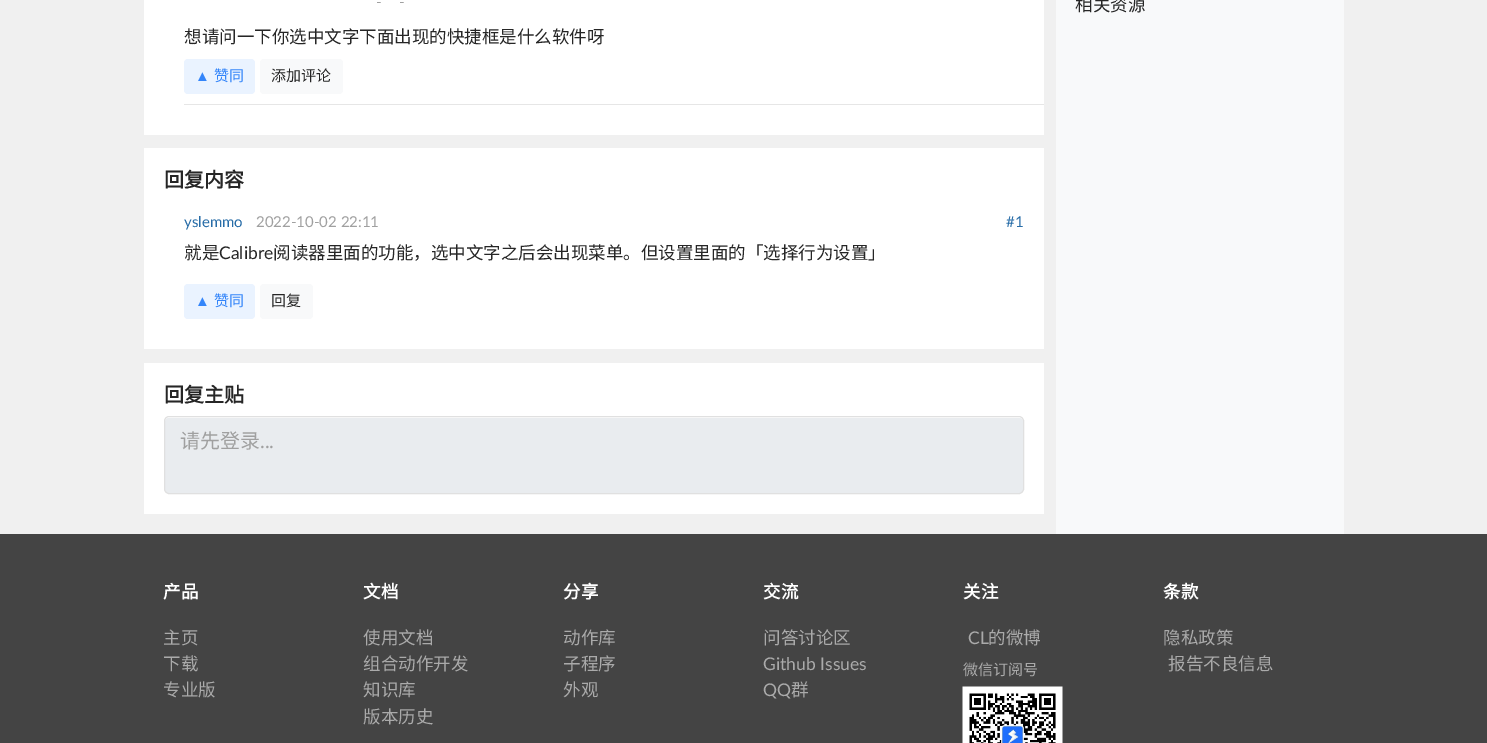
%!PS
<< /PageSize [1487 743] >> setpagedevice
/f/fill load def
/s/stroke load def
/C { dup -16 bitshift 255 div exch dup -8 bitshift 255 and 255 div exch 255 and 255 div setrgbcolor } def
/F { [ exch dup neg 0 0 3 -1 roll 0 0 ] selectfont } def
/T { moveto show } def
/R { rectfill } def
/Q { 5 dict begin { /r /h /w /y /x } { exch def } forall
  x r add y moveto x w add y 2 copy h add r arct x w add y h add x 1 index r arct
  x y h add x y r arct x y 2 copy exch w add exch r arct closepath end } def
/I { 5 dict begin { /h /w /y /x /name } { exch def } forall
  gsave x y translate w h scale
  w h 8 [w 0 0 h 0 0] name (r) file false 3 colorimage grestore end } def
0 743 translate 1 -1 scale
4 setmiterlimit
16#F0F0F0 C
0 0 1487 743 R
16#FFFFFF C
144 0 900 135 R
/Lato-Regular 15 F
16#A0A0A0 C
(-) 376 7 T
(-) 399 7 T
/NotoSansCJKSC-Regular 17.5 F
16#262626 C
(想请问一下你选中文字下面出现的快捷框是什么软件呀) 184 43 T
16#EAF3FF C
184 59 71 35 4 Q f
/LiberationSans-Regular 15 F
16#3385FA C
(▲) 195 81 T
/NotoSansCJKSC-Regular 15 F
(赞同) 214 81 T
16#F8F9FA C
260 59 83 35 4 Q f
16#262626 C
(添加评论) 271 81 T
16#E6E6E6 C
184 104 860 1 R
16#FFFFFF C
144 148 900 201 R
/NotoSansCJKSC-Bold 20 F
16#262626 C
(回复内容) 164 187 T
/Lato-Regular 15 F
16#286DA8 C
(yslemmo) 184 227 T
16#A0A0A0 C
(2022-10-02 22:11) 256 227 T
16#286DA8 C
(#1) 1006 227 T
/NotoSansCJKSC-Regular 17.5 F
16#262626 C
(就是) 184 259 T
/Lato-Regular 17.5 F
(Calibre) 219 259 T
/NotoSansCJKSC-Regular 17.5 F
(阅读器里面的功能，选中文字之后会出现菜单。但设置里面的「选择行为设置」) 273 259 T
16#EAF3FF C
184 284 71 35 4 Q f
/LiberationSans-Regular 15 F
16#3385FA C
(▲) 195 306 T
/NotoSansCJKSC-Regular 15 F
(赞同) 214 306 T
16#F8F9FA C
260 284 53 35 4 Q f
16#262626 C
(回复) 271 306 T
16#FFFFFF C
144 363 900 151 R
/NotoSansCJKSC-Bold 20 F
16#262626 C
(回复主贴) 164 402 T
16#E9ECEF C
165 418 858 75 4 Q f
16#E0E0E0 C
164.5 416.5 859 77 4.5 Q s
/NotoSansCJKSC-Regular 20 F
16#A0A0A0 C
(请先登录) 180 448 T
/Lato-Regular 20 F
(...) 260 448 T
16#F8F9FA C
1056 0 288 534 R
/NotoSansCJKSC-Regular 17.5 F
16#262626 C
(相关资源) 1075 11 T
16#444444 C
0 534 1487 209 R
/NotoSansCJKSC-Bold 17.5 F
16#FFFFFF C
(产品) 163 598 T
/NotoSansCJKSC-Regular 17.5 F
16#AAAAAA C
(主页) 163 644 T
(下载) 163 670 T
(专业版) 163 696 T
/NotoSansCJKSC-Bold 17.5 F
16#FFFFFF C
(文档) 363 598 T
/NotoSansCJKSC-Regular 17.5 F
16#AAAAAA C
(使用文档) 363 644 T
(组合动作开发) 363 670 T
(知识库) 363 696 T
(版本历史) 363 723 T
/NotoSansCJKSC-Bold 17.5 F
16#FFFFFF C
(分享) 563 598 T
/NotoSansCJKSC-Regular 17.5 F
16#AAAAAA C
(动作库) 563 644 T
(子程序) 563 670 T
(外观) 563 696 T
/NotoSansCJKSC-Bold 17.5 F
16#FFFFFF C
(交流) 763 598 T
/NotoSansCJKSC-Regular 17.5 F
16#AAAAAA C
(问答讨论区) 763 644 T
/Lato-Regular 17.5 F
(Github Issues) 763 670 T
(QQ) 763 696 T
/NotoSansCJKSC-Regular 17.5 F
(群) 791 696 T
/NotoSansCJKSC-Bold 17.5 F
16#FFFFFF C
(关注) 963 598 T
/Lato-Regular 17.5 F
16#AAAAAA C
(CL) 968 644 T
/NotoSansCJKSC-Regular 17.5 F
(的微博) 988 644 T
/NotoSansCJKSC-Regular 15 F
(微信订阅号) 963 675 T
(1.rgb) 962 686 101 57 I
/NotoSansCJKSC-Bold 17.5 F
16#FFFFFF C
(条款) 1163 598 T
/NotoSansCJKSC-Regular 17.5 F
16#AAAAAA C
(隐私政策) 1163 644 T
(报告不良信息) 1168 670 T
showpage
